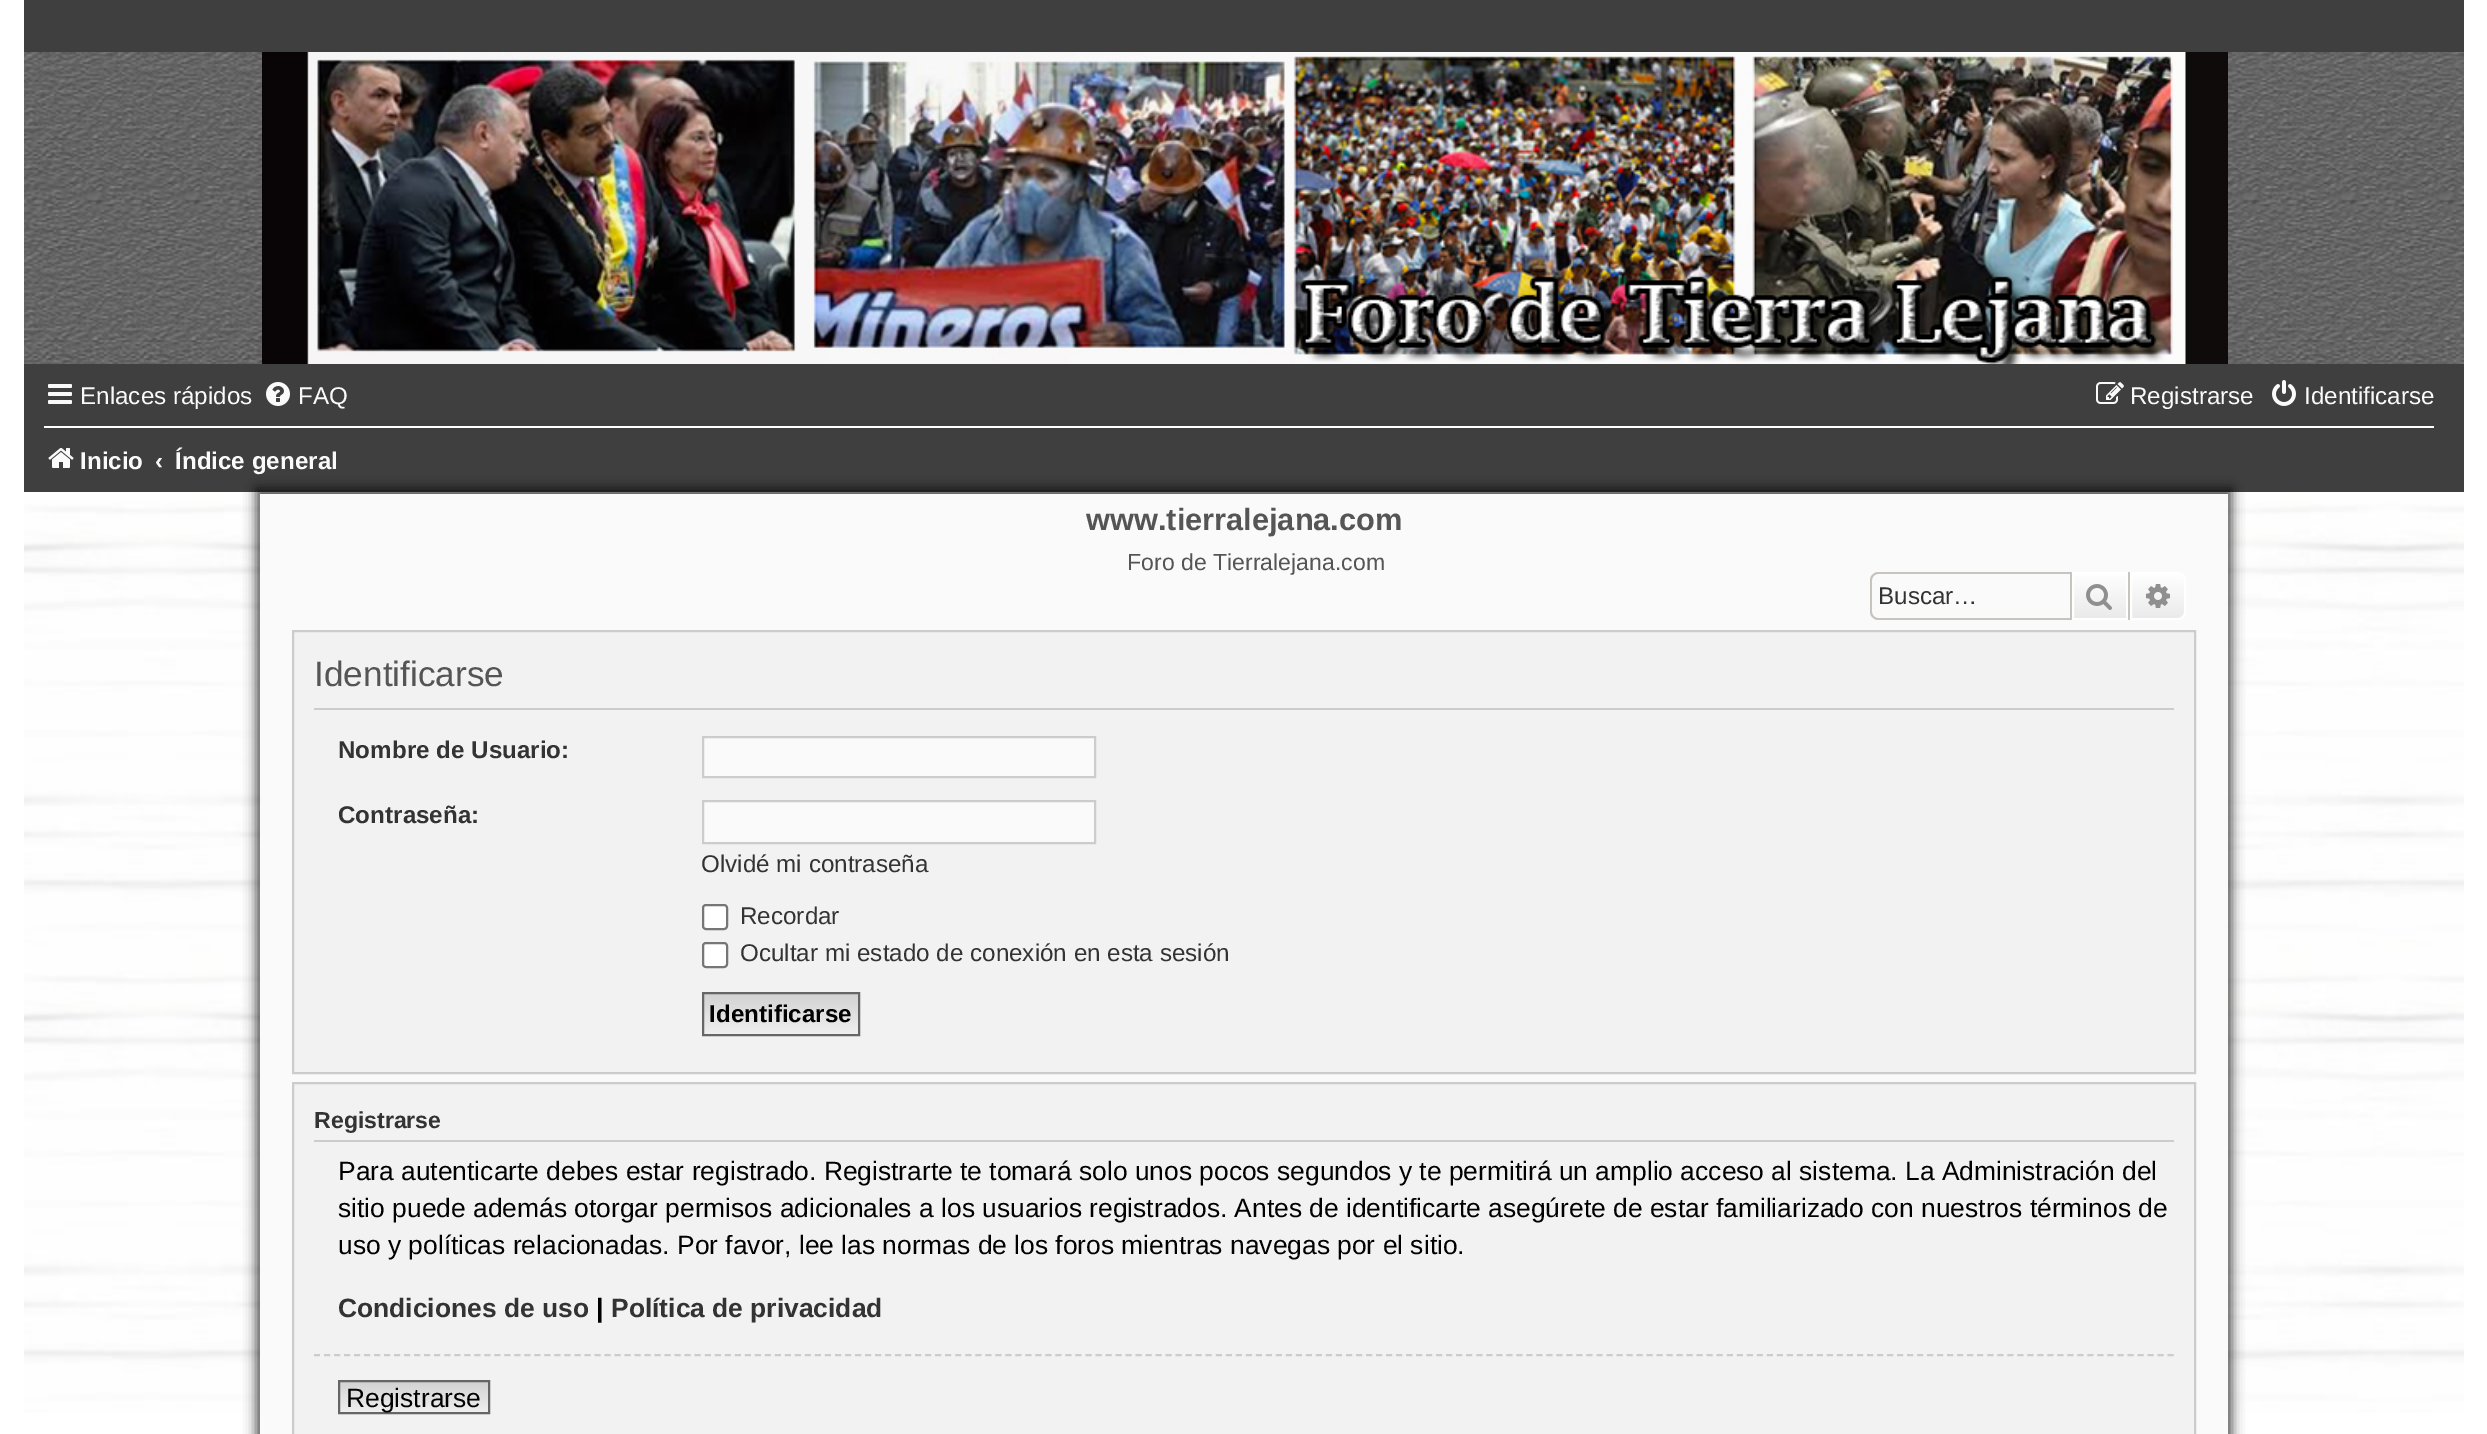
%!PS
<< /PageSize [2487 1434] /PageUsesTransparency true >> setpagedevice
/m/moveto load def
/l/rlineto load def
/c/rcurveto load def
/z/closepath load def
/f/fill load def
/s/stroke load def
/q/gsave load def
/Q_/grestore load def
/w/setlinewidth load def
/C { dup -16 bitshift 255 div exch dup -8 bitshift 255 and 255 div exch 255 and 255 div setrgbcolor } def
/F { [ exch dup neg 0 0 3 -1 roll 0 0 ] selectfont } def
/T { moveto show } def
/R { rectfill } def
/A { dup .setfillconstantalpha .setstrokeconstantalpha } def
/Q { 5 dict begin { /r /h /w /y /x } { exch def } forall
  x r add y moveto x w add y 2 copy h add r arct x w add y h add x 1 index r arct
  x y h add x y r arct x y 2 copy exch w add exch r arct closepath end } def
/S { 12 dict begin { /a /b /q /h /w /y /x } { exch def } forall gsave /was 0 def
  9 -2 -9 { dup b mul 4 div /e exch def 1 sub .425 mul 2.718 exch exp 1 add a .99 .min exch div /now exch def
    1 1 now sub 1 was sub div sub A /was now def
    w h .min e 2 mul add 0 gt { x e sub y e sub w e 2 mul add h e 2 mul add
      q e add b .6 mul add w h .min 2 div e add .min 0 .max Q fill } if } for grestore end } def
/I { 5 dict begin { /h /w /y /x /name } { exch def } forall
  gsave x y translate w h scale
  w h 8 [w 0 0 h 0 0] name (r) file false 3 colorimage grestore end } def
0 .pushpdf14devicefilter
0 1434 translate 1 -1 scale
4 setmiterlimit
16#FFFFFF C
0 0 2487 1434 R
(1.rgb) 24 492 2440 921 I
(2.rgb) 24 52 2440 312 I
16#3F3F3F C
24 0 2440 52 R
(3.rgb) 262 52 1966 312 I
24 364 2440 128 R
(4.rgb) 48 384 24 20 I
/LiberationSans-Regular 24.2 F
16#FAFAFA C
(Enlaces rápidos) 80 404 T
(5.rgb) 266 382 24 24 I
(FAQ) 298 404 T
(6.rgb) 2096 382 28 22 I
(Registrarse) 2130 404 T
(7.rgb) 2272 380 24 26 I
(Identificarse) 2304 404 T
16#FFFFFF C
44 426 2390 2 R
(8.rgb) 48 448 26 20 I
/LiberationSans-Bold 24.2 F
16#FAFAFA C
(Inicio) 80 469 T
(‹) 155 469 T
16#020202 C
256 488 1976 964 0 6 .7 S
16#FAFAFA C
(Índice general) 175 469 T
260 494 1968 940 R
/LiberationSans-Bold 30.75 F
16#555555 C
(www.tierralejana.com) 1086 530 T
/LiberationSans-Regular 23.1 F
(Foro de Tierralejana.com) 1127 570 T
16#C7C3BF C
1878 572 m 192 0 l 0 48 l -192 0 l -4 0 -8 -4 -8 -8 c 0 -32 l 0 -4 4 -8 8 -8 c z 1878 574 m 192 0 l 0 44 l -192 0 l -3 0 -6 -3 -6 -6 c 0 -32 l 0 -3 3 -6 6 -6 c z eofill
/LiberationSans-Regular 24.2 F
16#333333 C
(Buscar…) 1878 604 T
q 2074 574 m 52 0 l 0 44 l -52 0 l z clip newpath
<< /ShadingType 2 /ColorSpace /DeviceRGB /Coords [2100 572 2100 620] /Extend [true true] /Function << /FunctionType 2 /Domain [0 1] /C0 [1 1 1] /C1 [.914 .914 .914] /N 1 >> >> shfill Q_
16#FFFFFF C
2 w
2073 573 54 46 rectstroke
16#C7C3BF C
2128 572 2 48 R
2070 572 2 48 R
(9.rgb) 2086 584 26 26 I
q 2131 573 m 47 0 l 4 0 7 3 7 7 c 0 32 l 0 4 -3 7 -7 7 c -47 0 l z clip newpath
<< /ShadingType 2 /ColorSpace /DeviceRGB /Coords [2158 572 2158 620] /Extend [true true] /Function << /FunctionType 2 /Domain [0 1] /C0 [1 1 1] /C1 [.914 .914 .914] /N 1 >> >> shfill Q_
16#FFFFFF C
2131 573 m 47 0 l 4 0 7 3 7 7 c 0 32 l 0 4 -3 7 -7 7 c -47 0 l z s
(10.rgb) 2146 584 24 24 I
16#F2F2F2 C
293 631 m 1902 0 l 0 442 l -1902 0 l z q f Q_
16#CCCCCC C
s
314 708 1860 2 R
/LiberationSans-Regular 35.25 F
16#555555 C
(Identificarse) 314 686 T
/LiberationSans-Bold 24.2 F
16#333333 C
(Nombre de Usuario:) 338 758 T
16#FAFAFA C
703 737 m 392 0 l 0 40 l -392 0 l z q f Q_
16#CCCCCC C
s
16#333333 C
(Contraseña:) 338 823 T
16#FAFAFA C
703 801 m 392 0 l 0 42 l -392 0 l z q f Q_
16#CCCCCC C
s
/LiberationSans-Regular 24.2 F
16#333333 C
(Olvidé mi contraseña) 701 872 T
16#FFFFFF C
703 905 24 24 3 Q q f Q_
16#767676 C
s
16#333333 C
(Recordar) 740 924 T
16#FFFFFF C
703 943 24 24 3 Q q f Q_
16#767676 C
s
16#333333 C
(Ocultar mi estado de conexión en esta sesión) 740 961 T
q 704 994 m 154 0 l 0 40 l -154 0 l z clip newpath
<< /ShadingType 2 /ColorSpace /DeviceRGB /Coords [781 994 781 1034] /Extend [true true] /Function << /FunctionType 2 /Domain [0 1] /C0 [.824 .824 .824] /C1 [.937 .937 .937] /N 1 >> >> shfill Q_
16#666666 C
703 993 156 42 rectstroke
/LiberationSans-Bold 24.2 F
16#000000 C
(Identificarse) 709 1022 T
16#F2F2F2 C
293 1083 m 1902 0 l 0 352 l -1902 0 l z q f Q_
16#CCCCCC C
s
314 1140 1860 2 R
/LiberationSans-Bold 23.1 F
16#333333 C
(Registrarse) 314 1128 T
/LiberationSans-Regular 26.4 F
16#000000 C
(Para autenticarte debes estar registrado. Registrarte te tomará solo unos pocos segundos y te permitirá un amplio acceso al sistema. La Administración del) 338 1180 T
(sitio puede además otorgar permisos adicionales a los usuarios registrados. Antes de identificarte asegúrete de estar familiarizado con nuestros términos de) 338 1217 T
(uso y políticas relacionadas. Por favor, lee las normas de los foros mientras navegas por el sitio.) 338 1254 T
/LiberationSans-Bold 26.4 F
16#333333 C
(Condiciones de uso) 338 1317 T
16#000000 C
(|) 596 1317 T
16#333333 C
(Política de privacidad) 611 1317 T
16#CCCCCC C
[6 4.02] 0 setdash
314 1355 m 1860 0 l s
q 340 1382 m 148 0 l 0 30 l -148 0 l z clip newpath
<< /ShadingType 2 /ColorSpace /DeviceRGB /Coords [414 1382 414 1412] /Extend [true true] /Function << /FunctionType 2 /Domain [0 1] /C0 [.824 .824 .824] /C1 [.937 .937 .937] /N 1 >> >> shfill Q_
16#666666 C
[] 0 setdash
339 1381 150 32 rectstroke
/LiberationSans-Regular 26.4 F
16#000000 C
(Registrarse) 346 1407 T
.poppdf14devicefilter showpage
